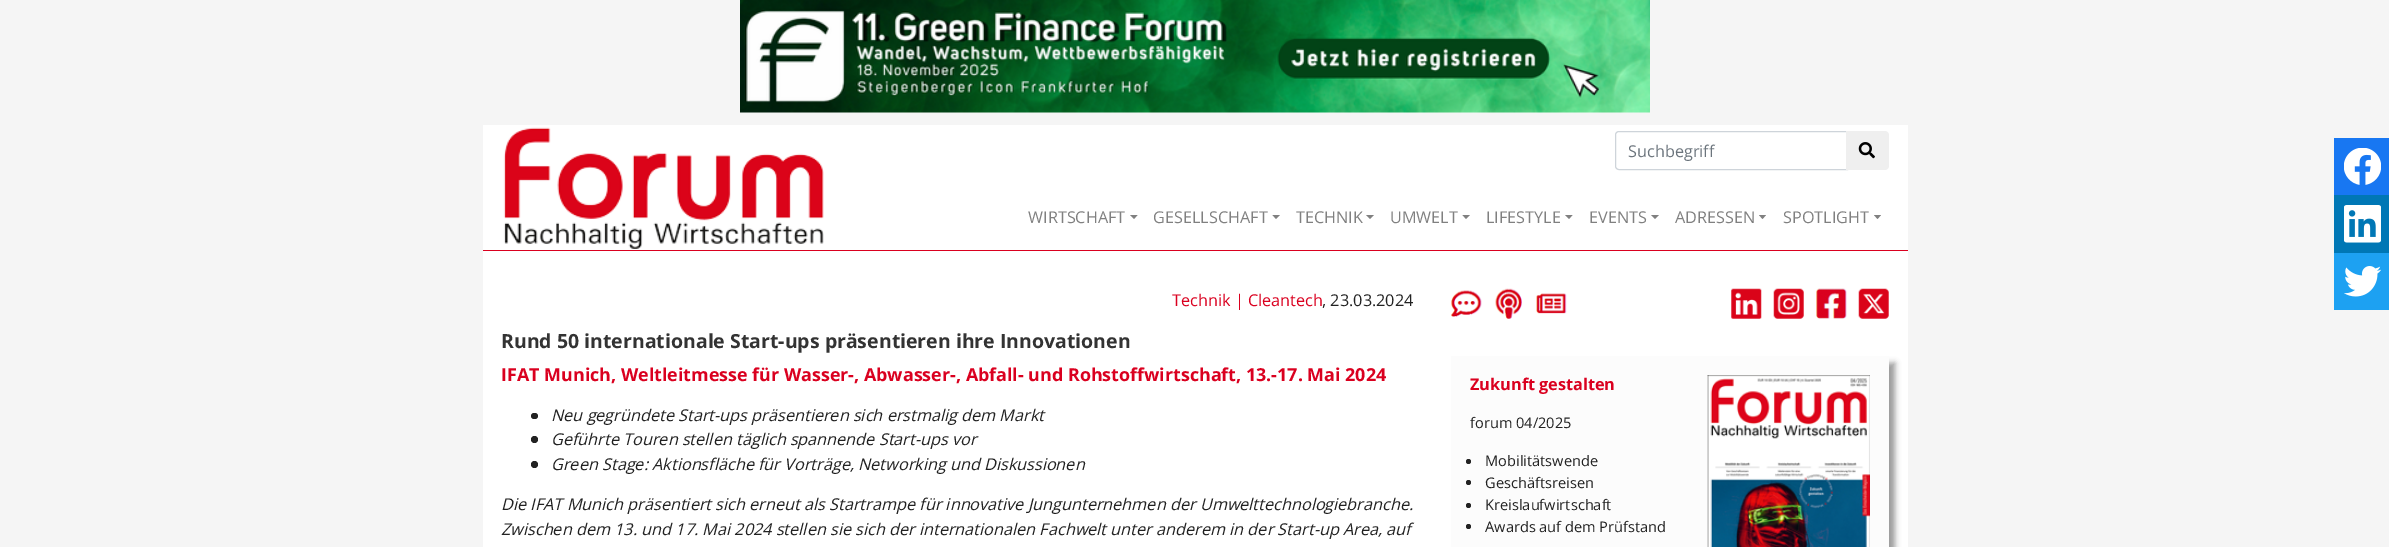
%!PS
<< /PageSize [2389 547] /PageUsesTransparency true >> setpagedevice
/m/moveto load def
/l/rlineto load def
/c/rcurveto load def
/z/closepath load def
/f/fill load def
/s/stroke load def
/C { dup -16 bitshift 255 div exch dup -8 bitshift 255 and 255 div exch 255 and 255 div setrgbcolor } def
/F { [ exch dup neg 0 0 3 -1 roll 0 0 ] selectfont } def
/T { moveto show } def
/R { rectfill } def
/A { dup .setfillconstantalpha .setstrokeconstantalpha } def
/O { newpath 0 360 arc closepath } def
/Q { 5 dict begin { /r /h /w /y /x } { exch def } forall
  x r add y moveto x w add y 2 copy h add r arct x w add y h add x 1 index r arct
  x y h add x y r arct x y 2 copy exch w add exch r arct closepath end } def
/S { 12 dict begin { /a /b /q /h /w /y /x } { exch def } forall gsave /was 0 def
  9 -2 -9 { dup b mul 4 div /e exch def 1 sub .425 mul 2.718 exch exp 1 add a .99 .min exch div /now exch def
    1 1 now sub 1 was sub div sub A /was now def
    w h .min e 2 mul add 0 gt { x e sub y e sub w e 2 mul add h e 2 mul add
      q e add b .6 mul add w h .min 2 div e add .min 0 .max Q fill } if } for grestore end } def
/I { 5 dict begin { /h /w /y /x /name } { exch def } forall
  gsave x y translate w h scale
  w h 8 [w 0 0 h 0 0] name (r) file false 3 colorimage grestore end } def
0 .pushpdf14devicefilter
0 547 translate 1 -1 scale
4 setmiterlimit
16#F5F5F5 C
0 0 2389 547 R
(1.rgb) 740 0 910 113 I
16#FFFFFF C
483 125 1425 125 R
16#DA001F C
483 250 1425 1 R
(2.rgb) 503 127 321 122 I
16#CED4DA C
1619 131.5 m 228.5 0 l 0 38 l -228.5 0 l -2 0 -3.5 -1.5 -3.5 -3.5 c 0 -31 l 0 -2 1.5 -3.5 3.5 -3.5 c z s
/OpenSans-Regular 16.25 F
16#6C757D C
(Suchbegriff) 1628 157 T
16#EFEFEF C
1846 131 m 39 0 l 2 0 4 2 4 4 c 0 31 l 0 2 -2 4 -4 4 c -39 0 l z f
(3.rgb) 1858 142 17 17 I
16#808080 C
(WIRTSCHAFT) 1028 223 T
1130 215 m 7.5 0 l -3.5 4 l z f
(GESELLSCHAFT) 1153 223 T
1272.5 215 m 7.5 0 l -4 4 l z f
(TECHNIK) 1296 223 T
1366 215 m 8 0 l -4 4 l z f
(UMWELT) 1390 223 T
1462.5 215 m 7.5 0 l -4 4 l z f
(LIFESTYLE) 1486 223 T
1565 215 m 7.5 0 l -3.5 4 l z f
(EVENTS) 1589 223 T
1651 215 m 8 0 l -4 4 l z f
(ADRESSEN) 1675 223 T
1759 215 m 7 0 l -3.5 4 l z f
(SPOTLIGHT) 1783 223 T
1874 215 m 7 0 l -3.5 4 l z f
16#1877F2 C
2334 138 55 57 R
(4.rgb) 2344 148 37 37 I
16#0077B5 C
2334 195 55 58 R
(5.rgb) 2344 205 37 38 I
16#1DA1F2 C
2334 253 55 57 R
(6.rgb) 2344 266 37 31 I
16#FFFFFF C
483 251 1425 296 R
16#DA001F C
(Technik | Cleantech) 1172 306 T
16#222222 C
(, 23.03.2024) 1322 306 T
/OpenSans-Bold 19.5 F
16#333333 C
(Rund 50 internationale Start-ups präsentieren ihre Innovationen) 501 348 T
/OpenSans-Bold 17.9 F
16#DA001F C
(IFAT Munich, Weltleitmesse für Wasser-, Abwasser-, Abfall- und Rohstoffwirtschaft, 13.-17. Mai 2024) 501 381 T
16#222222 C
531 413 7 6 3 Q f
/OpenSans-Italic 16.25 F
(Neu gegründete Start-ups präsentieren sich erstmalig dem Markt) 551 421 T
534.5 439.5 3.5 O f
(Geführte Touren stellen täglich spannende Start-ups vor) 551 445 T
534.5 464.5 3.5 O f
(Green Stage: Aktionsfläche für Vorträge, Networking und Diskussionen) 551 470 T
(Die IFAT Munich präsentiert sich erneut als Startrampe für innovative Jungunternehmen der Umwelttechnologiebranche.) 501 510 T
(Zwischen dem 13. und 17. Mai 2024 stellen sie sich der internationalen Fachwelt unter anderem in der Start-up Area, auf) 501 535 T
(7.rgb) 1451 290 31 27 I
(8.rgb) 1495 288 27 31 I
(9.rgb) 1536 293 31 21 I
(10.rgb) 1731 288 31 31 I
(11.rgb) 1773 288 31 31 I
(12.rgb) 1816 288 31 31 I
(13.rgb) 1858 288 31 31 I
16#999999 C
1458 363 437 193 0 3 1 S
16#FCFCFC C
1451 356 438 191 R
/OpenSans-Bold 16.25 F
16#DA001F C
(Zukunft gestalten) 1470 390 T
(14.rgb) 1707 375 163 172 I
/OpenSans-Regular 14.6 F
16#222222 C
(forum 04/2025) 1470 428 T
1468.5 461.5 2.5 O f
(Mobilitätswende) 1485 466 T
1468.5 482.5 2.5 O f
(Geschäftsreisen) 1485 488 T
1468.5 505.5 2.5 O f
(Kreislaufwirtschaft) 1485 510 T
1468.5 526.5 2.5 O f
(Awards auf dem Prüfstand) 1485 532 T
.poppdf14devicefilter showpage
